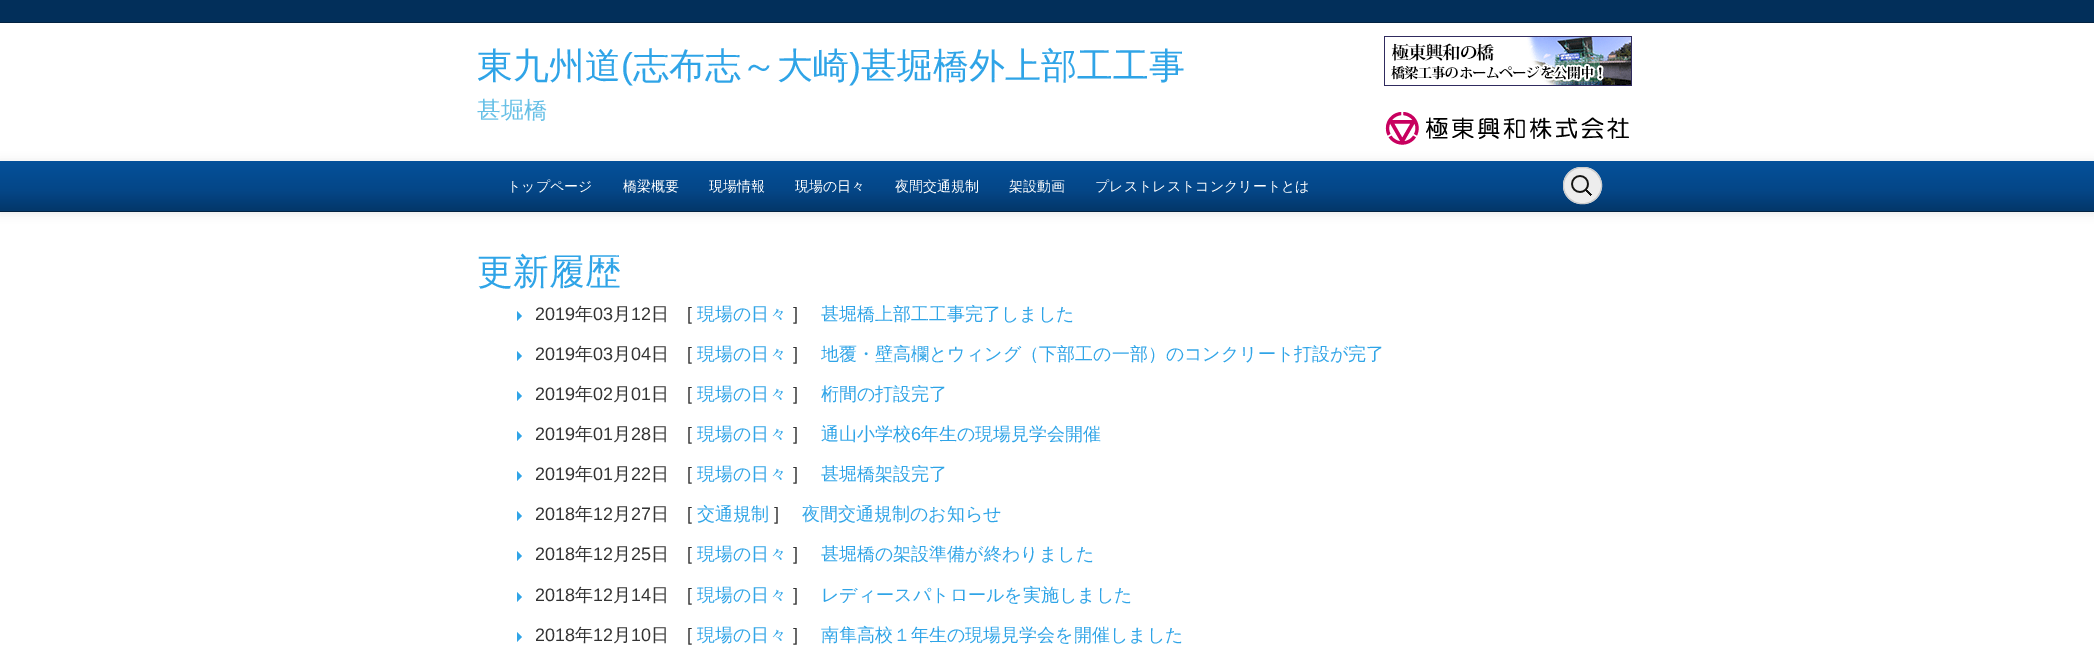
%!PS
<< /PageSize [2094 667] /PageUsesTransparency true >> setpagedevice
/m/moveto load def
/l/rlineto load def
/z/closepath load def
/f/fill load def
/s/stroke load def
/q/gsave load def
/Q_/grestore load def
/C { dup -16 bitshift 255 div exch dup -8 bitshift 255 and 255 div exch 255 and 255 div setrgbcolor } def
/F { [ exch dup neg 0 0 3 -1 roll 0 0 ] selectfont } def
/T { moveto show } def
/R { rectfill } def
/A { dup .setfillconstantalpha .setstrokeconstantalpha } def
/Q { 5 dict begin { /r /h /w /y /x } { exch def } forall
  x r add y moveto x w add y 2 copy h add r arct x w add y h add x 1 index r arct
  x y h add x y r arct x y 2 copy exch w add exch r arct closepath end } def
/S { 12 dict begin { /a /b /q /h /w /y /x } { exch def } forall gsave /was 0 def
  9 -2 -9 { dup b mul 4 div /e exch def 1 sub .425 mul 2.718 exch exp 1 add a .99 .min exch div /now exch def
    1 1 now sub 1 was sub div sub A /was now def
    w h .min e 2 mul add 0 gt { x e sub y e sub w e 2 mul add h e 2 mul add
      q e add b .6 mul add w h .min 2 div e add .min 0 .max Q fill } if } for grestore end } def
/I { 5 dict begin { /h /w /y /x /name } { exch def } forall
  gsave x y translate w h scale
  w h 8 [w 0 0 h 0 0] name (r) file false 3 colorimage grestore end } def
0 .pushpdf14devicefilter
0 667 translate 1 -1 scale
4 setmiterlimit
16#FFFFFF C
0 0 2094 667 R
16#022F5A C
0 0 2094 22 R
16#022241 C
0 22 2094 1 R
/WenQuanYiZenHei-Medium 36 F
16#2FA4E7 C
(東九州道) 477 78 T
/LiberationSans-Regular 36 F
(\() 621 78 T
/WenQuanYiZenHei-Medium 36 F
(志布志～大崎) 633 78 T
/LiberationSans-Regular 36 F
(\)) 849 78 T
/WenQuanYiZenHei-Medium 36 F
(甚堀橋外上部工工事) 861 78 T
/WenQuanYiZenHei-Medium 23.5 F
16#67C0E6 C
(甚堀橋) 477 118 T
(1.rgb) 1384 36 248 50 I
(2.rgb) 1385 112 244 33 I
16#000000 C
0 162 2094 51 0 5 .1 S
q 0 161 m 2094 0 l 0 50 l -2094 0 l z clip newpath
<< /ShadingType 2 /ColorSpace /DeviceRGB /Coords [1047 161 1047 211] /Extend [true true] /Function << /FunctionType 3 /Domain [0 1] /Functions [<< /FunctionType 2 /Domain [0 1] /C0 [.016 .318 .608] /C1 [.016 .275 .529] /N 1 >> << /FunctionType 2 /Domain [0 1] /C0 [.016 .275 .529] /C1 [.012 .216 .412] /N 1 >>] /Bounds [.6] /Encode [0 1 0 1] >> >> shfill Q_
16#022241 C
0 211 2094 1 R
/WenQuanYiZenHei-Medium 14 F
16#FFFFFF C
(トップページ) 507 191 T
(橋梁概要) 623 191 T
(現場情報) 709 191 T
(現場の日々) 795 191 T
(夜間交通規制) 895 191 T
(架設動画) 1009 191 T
(プレストレストコンクリートとは) 1095 191 T
16#EDEDED C
1563 167 39 37 18.5 Q f
(3.rgb) 1571 175 21 21 I
16#CCCCCC C
1563.5 167.5 38 36 18 Q s
/WenQuanYiZenHei-Medium 36 F
16#2FA4E7 C
(更新履歴) 477 284 T
517 321 m 0 -10 l 5 5 l z f
/LiberationSans-Regular 18 F
16#333333 C
(2019) 535 320 T
/WenQuanYiZenHei-Medium 18 F
(年) 575 320 T
/LiberationSans-Regular 18 F
(03) 593 320 T
/WenQuanYiZenHei-Medium 18 F
(月) 613 320 T
/LiberationSans-Regular 18 F
(12) 631 320 T
/WenQuanYiZenHei-Medium 18 F
(日) 651 320 T
/LiberationSans-Regular 18 F
([) 687 320 T
/WenQuanYiZenHei-Medium 18 F
16#2FA4E7 C
(現場の日々) 697 320 T
/LiberationSans-Regular 18 F
16#333333 C
(]) 793 320 T
/WenQuanYiZenHei-Medium 18 F
16#2FA4E7 C
(甚堀橋上部工工事完了しました) 821 320 T
517 361 m 0 -10 l 5 5 l z f
/LiberationSans-Regular 18 F
16#333333 C
(2019) 535 360 T
/WenQuanYiZenHei-Medium 18 F
(年) 575 360 T
/LiberationSans-Regular 18 F
(03) 593 360 T
/WenQuanYiZenHei-Medium 18 F
(月) 613 360 T
/LiberationSans-Regular 18 F
(04) 631 360 T
/WenQuanYiZenHei-Medium 18 F
(日) 651 360 T
/LiberationSans-Regular 18 F
([) 687 360 T
/WenQuanYiZenHei-Medium 18 F
16#2FA4E7 C
(現場の日々) 697 360 T
/LiberationSans-Regular 18 F
16#333333 C
(]) 793 360 T
/WenQuanYiZenHei-Medium 18 F
16#2FA4E7 C
(地覆・壁高欄とウィング（下部工の一部）のコンクリート打設が完了) 821 360 T
517 401 m 0 -10 l 5 5 l z f
/LiberationSans-Regular 18 F
16#333333 C
(2019) 535 400 T
/WenQuanYiZenHei-Medium 18 F
(年) 575 400 T
/LiberationSans-Regular 18 F
(02) 593 400 T
/WenQuanYiZenHei-Medium 18 F
(月) 613 400 T
/LiberationSans-Regular 18 F
(01) 631 400 T
/WenQuanYiZenHei-Medium 18 F
(日) 651 400 T
/LiberationSans-Regular 18 F
([) 687 400 T
/WenQuanYiZenHei-Medium 18 F
16#2FA4E7 C
(現場の日々) 697 400 T
/LiberationSans-Regular 18 F
16#333333 C
(]) 793 400 T
/WenQuanYiZenHei-Medium 18 F
16#2FA4E7 C
(桁間の打設完了) 821 400 T
517 441 m 0 -10 l 5 5 l z f
/LiberationSans-Regular 18 F
16#333333 C
(2019) 535 440 T
/WenQuanYiZenHei-Medium 18 F
(年) 575 440 T
/LiberationSans-Regular 18 F
(01) 593 440 T
/WenQuanYiZenHei-Medium 18 F
(月) 613 440 T
/LiberationSans-Regular 18 F
(28) 631 440 T
/WenQuanYiZenHei-Medium 18 F
(日) 651 440 T
/LiberationSans-Regular 18 F
([) 687 440 T
/WenQuanYiZenHei-Medium 18 F
16#2FA4E7 C
(現場の日々) 697 440 T
/LiberationSans-Regular 18 F
16#333333 C
(]) 793 440 T
/WenQuanYiZenHei-Medium 18 F
16#2FA4E7 C
(通山小学校) 821 440 T
/LiberationSans-Regular 18 F
(6) 911 440 T
/WenQuanYiZenHei-Medium 18 F
(年生の現場見学会開催) 921 440 T
517 481 m 0 -10 l 5 5 l z f
/LiberationSans-Regular 18 F
16#333333 C
(2019) 535 480 T
/WenQuanYiZenHei-Medium 18 F
(年) 575 480 T
/LiberationSans-Regular 18 F
(01) 593 480 T
/WenQuanYiZenHei-Medium 18 F
(月) 613 480 T
/LiberationSans-Regular 18 F
(22) 631 480 T
/WenQuanYiZenHei-Medium 18 F
(日) 651 480 T
/LiberationSans-Regular 18 F
([) 687 480 T
/WenQuanYiZenHei-Medium 18 F
16#2FA4E7 C
(現場の日々) 697 480 T
/LiberationSans-Regular 18 F
16#333333 C
(]) 793 480 T
/WenQuanYiZenHei-Medium 18 F
16#2FA4E7 C
(甚堀橋架設完了) 821 480 T
517 521 m 0 -10 l 5 5 l z f
/LiberationSans-Regular 18 F
16#333333 C
(2018) 535 520 T
/WenQuanYiZenHei-Medium 18 F
(年) 575 520 T
/LiberationSans-Regular 18 F
(12) 593 520 T
/WenQuanYiZenHei-Medium 18 F
(月) 613 520 T
/LiberationSans-Regular 18 F
(27) 631 520 T
/WenQuanYiZenHei-Medium 18 F
(日) 651 520 T
/LiberationSans-Regular 18 F
([) 687 520 T
/WenQuanYiZenHei-Medium 18 F
16#2FA4E7 C
(交通規制) 697 520 T
/LiberationSans-Regular 18 F
16#333333 C
(]) 774 520 T
/WenQuanYiZenHei-Medium 18 F
16#2FA4E7 C
(夜間交通規制のお知らせ) 802 520 T
517 561 m 0 -10 l 5 5 l z f
/LiberationSans-Regular 18 F
16#333333 C
(2018) 535 560 T
/WenQuanYiZenHei-Medium 18 F
(年) 575 560 T
/LiberationSans-Regular 18 F
(12) 593 560 T
/WenQuanYiZenHei-Medium 18 F
(月) 613 560 T
/LiberationSans-Regular 18 F
(25) 631 560 T
/WenQuanYiZenHei-Medium 18 F
(日) 651 560 T
/LiberationSans-Regular 18 F
([) 687 560 T
/WenQuanYiZenHei-Medium 18 F
16#2FA4E7 C
(現場の日々) 697 560 T
/LiberationSans-Regular 18 F
16#333333 C
(]) 793 560 T
/WenQuanYiZenHei-Medium 18 F
16#2FA4E7 C
(甚堀橋の架設準備が終わりました) 821 560 T
517 602 m 0 -10 l 5 5 l z f
/LiberationSans-Regular 18 F
16#333333 C
(2018) 535 601 T
/WenQuanYiZenHei-Medium 18 F
(年) 575 601 T
/LiberationSans-Regular 18 F
(12) 593 601 T
/WenQuanYiZenHei-Medium 18 F
(月) 613 601 T
/LiberationSans-Regular 18 F
(14) 631 601 T
/WenQuanYiZenHei-Medium 18 F
(日) 651 601 T
/LiberationSans-Regular 18 F
([) 687 601 T
/WenQuanYiZenHei-Medium 18 F
16#2FA4E7 C
(現場の日々) 697 601 T
/LiberationSans-Regular 18 F
16#333333 C
(]) 793 601 T
/WenQuanYiZenHei-Medium 18 F
16#2FA4E7 C
(レディースパトロールを実施しました) 821 601 T
517 642 m 0 -10 l 5 5 l z f
/LiberationSans-Regular 18 F
16#333333 C
(2018) 535 641 T
/WenQuanYiZenHei-Medium 18 F
(年) 575 641 T
/LiberationSans-Regular 18 F
(12) 593 641 T
/WenQuanYiZenHei-Medium 18 F
(月) 613 641 T
/LiberationSans-Regular 18 F
(10) 631 641 T
/WenQuanYiZenHei-Medium 18 F
(日) 651 641 T
/LiberationSans-Regular 18 F
([) 687 641 T
/WenQuanYiZenHei-Medium 18 F
16#2FA4E7 C
(現場の日々) 697 641 T
/LiberationSans-Regular 18 F
16#333333 C
(]) 793 641 T
/WenQuanYiZenHei-Medium 18 F
16#2FA4E7 C
(南隼高校１年生の現場見学会を開催しました) 821 641 T
.poppdf14devicefilter showpage
